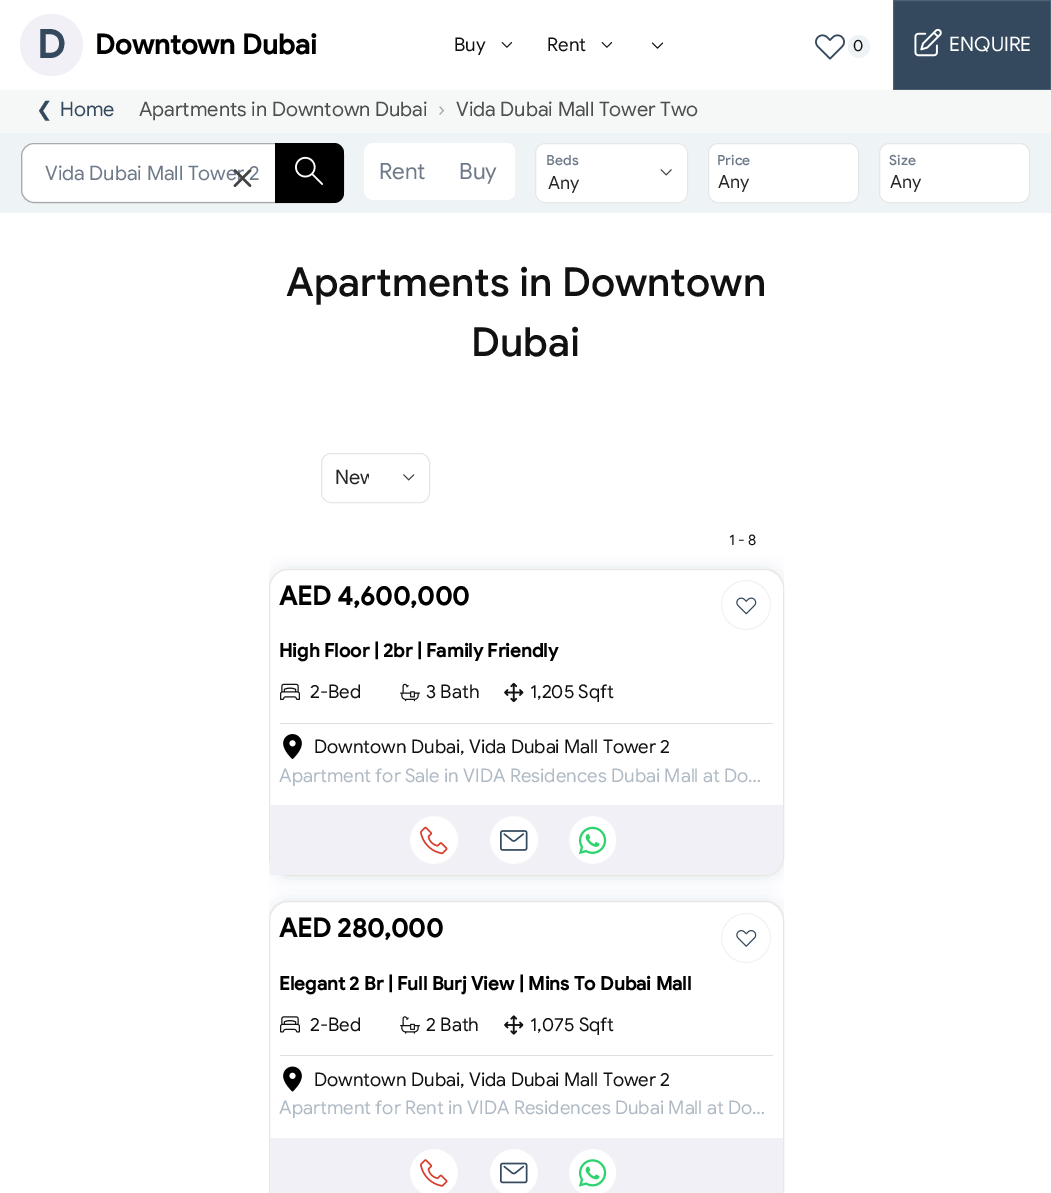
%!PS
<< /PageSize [1051 1193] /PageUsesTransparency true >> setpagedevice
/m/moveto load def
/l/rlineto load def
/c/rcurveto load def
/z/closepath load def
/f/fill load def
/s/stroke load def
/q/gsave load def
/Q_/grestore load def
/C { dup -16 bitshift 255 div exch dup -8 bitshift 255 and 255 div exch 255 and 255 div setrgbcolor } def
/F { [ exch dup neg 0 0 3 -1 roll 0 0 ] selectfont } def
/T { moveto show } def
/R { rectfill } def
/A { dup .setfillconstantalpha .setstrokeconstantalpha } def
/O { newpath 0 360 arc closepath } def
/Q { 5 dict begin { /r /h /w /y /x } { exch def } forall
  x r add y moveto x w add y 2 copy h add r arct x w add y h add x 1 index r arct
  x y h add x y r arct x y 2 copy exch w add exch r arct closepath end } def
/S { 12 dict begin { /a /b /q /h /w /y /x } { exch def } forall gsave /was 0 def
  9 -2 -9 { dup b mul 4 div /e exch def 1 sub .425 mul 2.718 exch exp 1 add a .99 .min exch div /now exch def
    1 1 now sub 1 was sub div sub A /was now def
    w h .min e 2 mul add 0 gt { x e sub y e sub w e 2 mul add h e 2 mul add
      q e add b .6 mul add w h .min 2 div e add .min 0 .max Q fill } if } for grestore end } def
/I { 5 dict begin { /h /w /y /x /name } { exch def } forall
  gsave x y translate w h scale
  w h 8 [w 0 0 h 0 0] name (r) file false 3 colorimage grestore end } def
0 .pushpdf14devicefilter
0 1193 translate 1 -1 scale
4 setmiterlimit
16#FFFFFF C
0 0 1051 1193 R
16#F2F0F7 C
20 14 63 62 31 Q f
/GoogleSans-Bold 39 F
16#34495E C
(D) 37 58 T
/GoogleSans-Bold 27.5 F
16#000000 C
(Downtown Dubai) 95 54 T
/GoogleSans-Regular 18.75 F
16#111111 C
(Buy) 454 51 T
(1.rgb) 501 42 12 6 I
(Rent) 547 51 T
(1.rgb) 601 42 12 6 I
(2.rgb) 651 42 13 7 I
(3.rgb) 815 34 30 26 I
16#EEF3F6 C
848 35 22 23 11 Q f
/GoogleSans-Regular 16 F
16#111111 C
(0) 853 51 T
16#34495E C
893.5 .5 m 157 0 l 0 89 l -157 0 l z q f Q_
16#4D6072 C
s
(4.rgb) 914 28 28 29 I
/GoogleSans-Regular 20 F
16#FFFFFF C
(ENQUIRE) 949 51 T
16#F6F7F7 C
0 90 1051 43 R
/DejaVuSans-Regular 20 F
16#34495E C
(❮) 36 116 T
/GoogleSans-Regular 20 F
(Home) 60 116 T
16#4E4E4E C
(Apartments in Downtown Dubai) 139 116 T
16#A4A5A5 C
(›) 438 116 T
16#4E4E4E C
(Vida Dubai Mall Tower Two) 456 116 T
16#EEF3F6 C
0 133 1051 80 R
16#FFFFFF C
23 144 320 57 11 Q f
16#AAAAAA C
21.5 143.5 322 59 12.5 Q s
16#6E7A89 C
(Vida Dubai Mall Tower 2) 45 180 T
(5.rgb) 233 169 19 18 I
16#000000 C
275 143 m 59 0 l 5.5 0 10 4.5 10 10 c 0 40 l 0 5.5 -4.5 10 -10 10 c -59 0 l z f
(6.rgb) 295 156 29 29 I
16#FFFFFF C
374 143 m 66 0 l 0 57 l -66 0 l -5.5 0 -10 -4.5 -10 -10 c 0 -37 l 0 -5.5 4.5 -10 10 -10 c z f
/GoogleSans-Regular 22.5 F
16#6E7A89 C
(Rent) 379 179 T
q
364 143 151 57 rectclip
16#FFFFFF C
440 143 m 66 0 l 5.5 0 10 4.5 10 10 c 0 37 l 0 5.5 -4.5 10 -10 10 c -66 0 l z f
Q_
(Buy) 459 179 T
16#FFFFFF C
535 143 153 60 10 Q f
(7.rgb) 660 169 12 7 I
16#E6E6E6 C
535.5 143.5 152 59 9.5 Q s
/GoogleSans-Medium 14 F
16#6E7A89 C
(Beds) 546 165 T
/GoogleSans-Regular 18 F
16#262626 C
(Any) 548 189 T
16#FFFFFF C
708.5 143.5 150 59 9.5 Q q f Q_
16#E6E6E6 C
s
/GoogleSans-Medium 14 F
16#6E7A89 C
(Price) 717 165 T
/GoogleSans-Regular 18 F
16#262626 C
(Any) 718 188 T
16#FFFFFF C
879.5 143.5 150 59 9.5 Q q f Q_
16#E6E6E6 C
s
/GoogleSans-Medium 14 F
16#6E7A89 C
(Size) 889 165 T
/GoogleSans-Regular 18 F
16#262626 C
(Any) 890 188 T
/GoogleSans-Medium 40 F
16#111111 C
(Apartments in Downtown) 286 296 T
(Dubai) 471 356 T
(8.rgb) 403 474 12 7 I
16#E6E6E6 C
321.5 453.5 108 49 9.5 Q s
q
334 465 35 25 rectclip
/GoogleSans-Regular 20 F
16#262626 C
(New) 335 484 T
Q_
/GoogleSans-Regular 15 F
16#111111 C
(1 - 8) 729 545 T
q
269 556 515 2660 rectclip
16#477D8A C
268 568 517 310 20 7.5 .16 S
Q_
16#FFFFFF C
269.5 569.5 514 306 18.5 Q q f Q_
16#E9E6E3 C
s
/GoogleSans-Bold 26.25 F
16#000000 C
(AED 4,600,000) 279 605 T
16#EEF3F6 C
746 605 24.5 O s
(9.rgb) 736 597 21 18 I
/GoogleSans-Bold 18.75 F
16#000000 C
(High Floor | 2br | Family Friendly) 279 657 T
16#DFDFDF C
280 723 493 1 R
(10.rgb) 280 683 20 17 I
/GoogleSans-Regular 18.75 F
16#111111 C
(2-Bed) 310 698 T
(11.rgb) 400 683 20 19 I
(3 Bath) 426 698 T
(12.rgb) 504 682 20 21 I
(1,205 Sqft) 530 698 T
(13.rgb) 283 734 19 25 I
(Downtown Dubai, Vida Dubai Mall Tower 2) 314 753 T
16#AFBAC5 C
(Apartment for Sale in VIDA Residences Dubai Mall at Do…) 279 782 T
16#F2F0F7 C
270 805 m 513 0 l 0 51 l 0 10.5 -8.5 19 -19 19 c -494 0 l z f
16#FFFFFF C
434 840 24.5 O q f Q_
16#EEF3F6 C
s
(14.rgb) 420 826 28 29 I
16#FFFFFF C
514 840 24.5 O q f Q_
16#EEF3F6 C
s
(15.rgb) 500 830 28 21 I
16#FFFFFF C
569 816 47 48 23.5 Q f
16#EEF3F6 C
593 840 24.5 O s
(16.rgb) 578 826 29 29 I
q
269 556 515 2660 rectclip
16#477D8A C
268 900 517 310 20 7.5 .16 S
Q_
16#FFFFFF C
269.5 901.5 514 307 18.5 Q q f Q_
16#E9E6E3 C
s
/GoogleSans-Bold 26.25 F
16#000000 C
(AED 280,000) 279 937 T
16#EEF3F6 C
746 938 24.5 O s
(17.rgb) 736 930 21 17 I
/GoogleSans-Bold 18.75 F
16#000000 C
(Elegant 2 Br | Full Burj View | Mins To Dubai Mall) 279 990 T
16#DFDFDF C
280 1055 493 1 R
(18.rgb) 280 1016 20 17 I
/GoogleSans-Regular 18.75 F
16#111111 C
(2-Bed) 310 1031 T
(19.rgb) 400 1016 20 18 I
(2 Bath) 426 1031 T
(20.rgb) 504 1015 20 20 I
(1,075 Sqft) 530 1031 T
(21.rgb) 283 1066 19 26 I
(Downtown Dubai, Vida Dubai Mall Tower 2) 314 1086 T
16#AFBAC5 C
(Apartment for Rent in VIDA Residences Dubai Mall at Do…) 279 1114 T
16#F2F0F7 C
270 1138 m 513 0 l 0 51 l 0 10.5 -8.5 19 -19 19 c -494 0 l z f
16#FFFFFF C
410 1149 48 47 23.5 Q f
16#EEF3F6 C
434 1173 24.5 O s
(22.rgb) 420 1159 28 28 I
16#FFFFFF C
490 1149 48 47 23.5 Q f
16#EEF3F6 C
514 1173 24.5 O s
(23.rgb) 500 1162 28 22 I
16#FFFFFF C
592.5 1172.5 23.5 O f
16#EEF3F6 C
593 1173 24.5 O s
(24.rgb) 578 1159 29 28 I
.poppdf14devicefilter showpage
